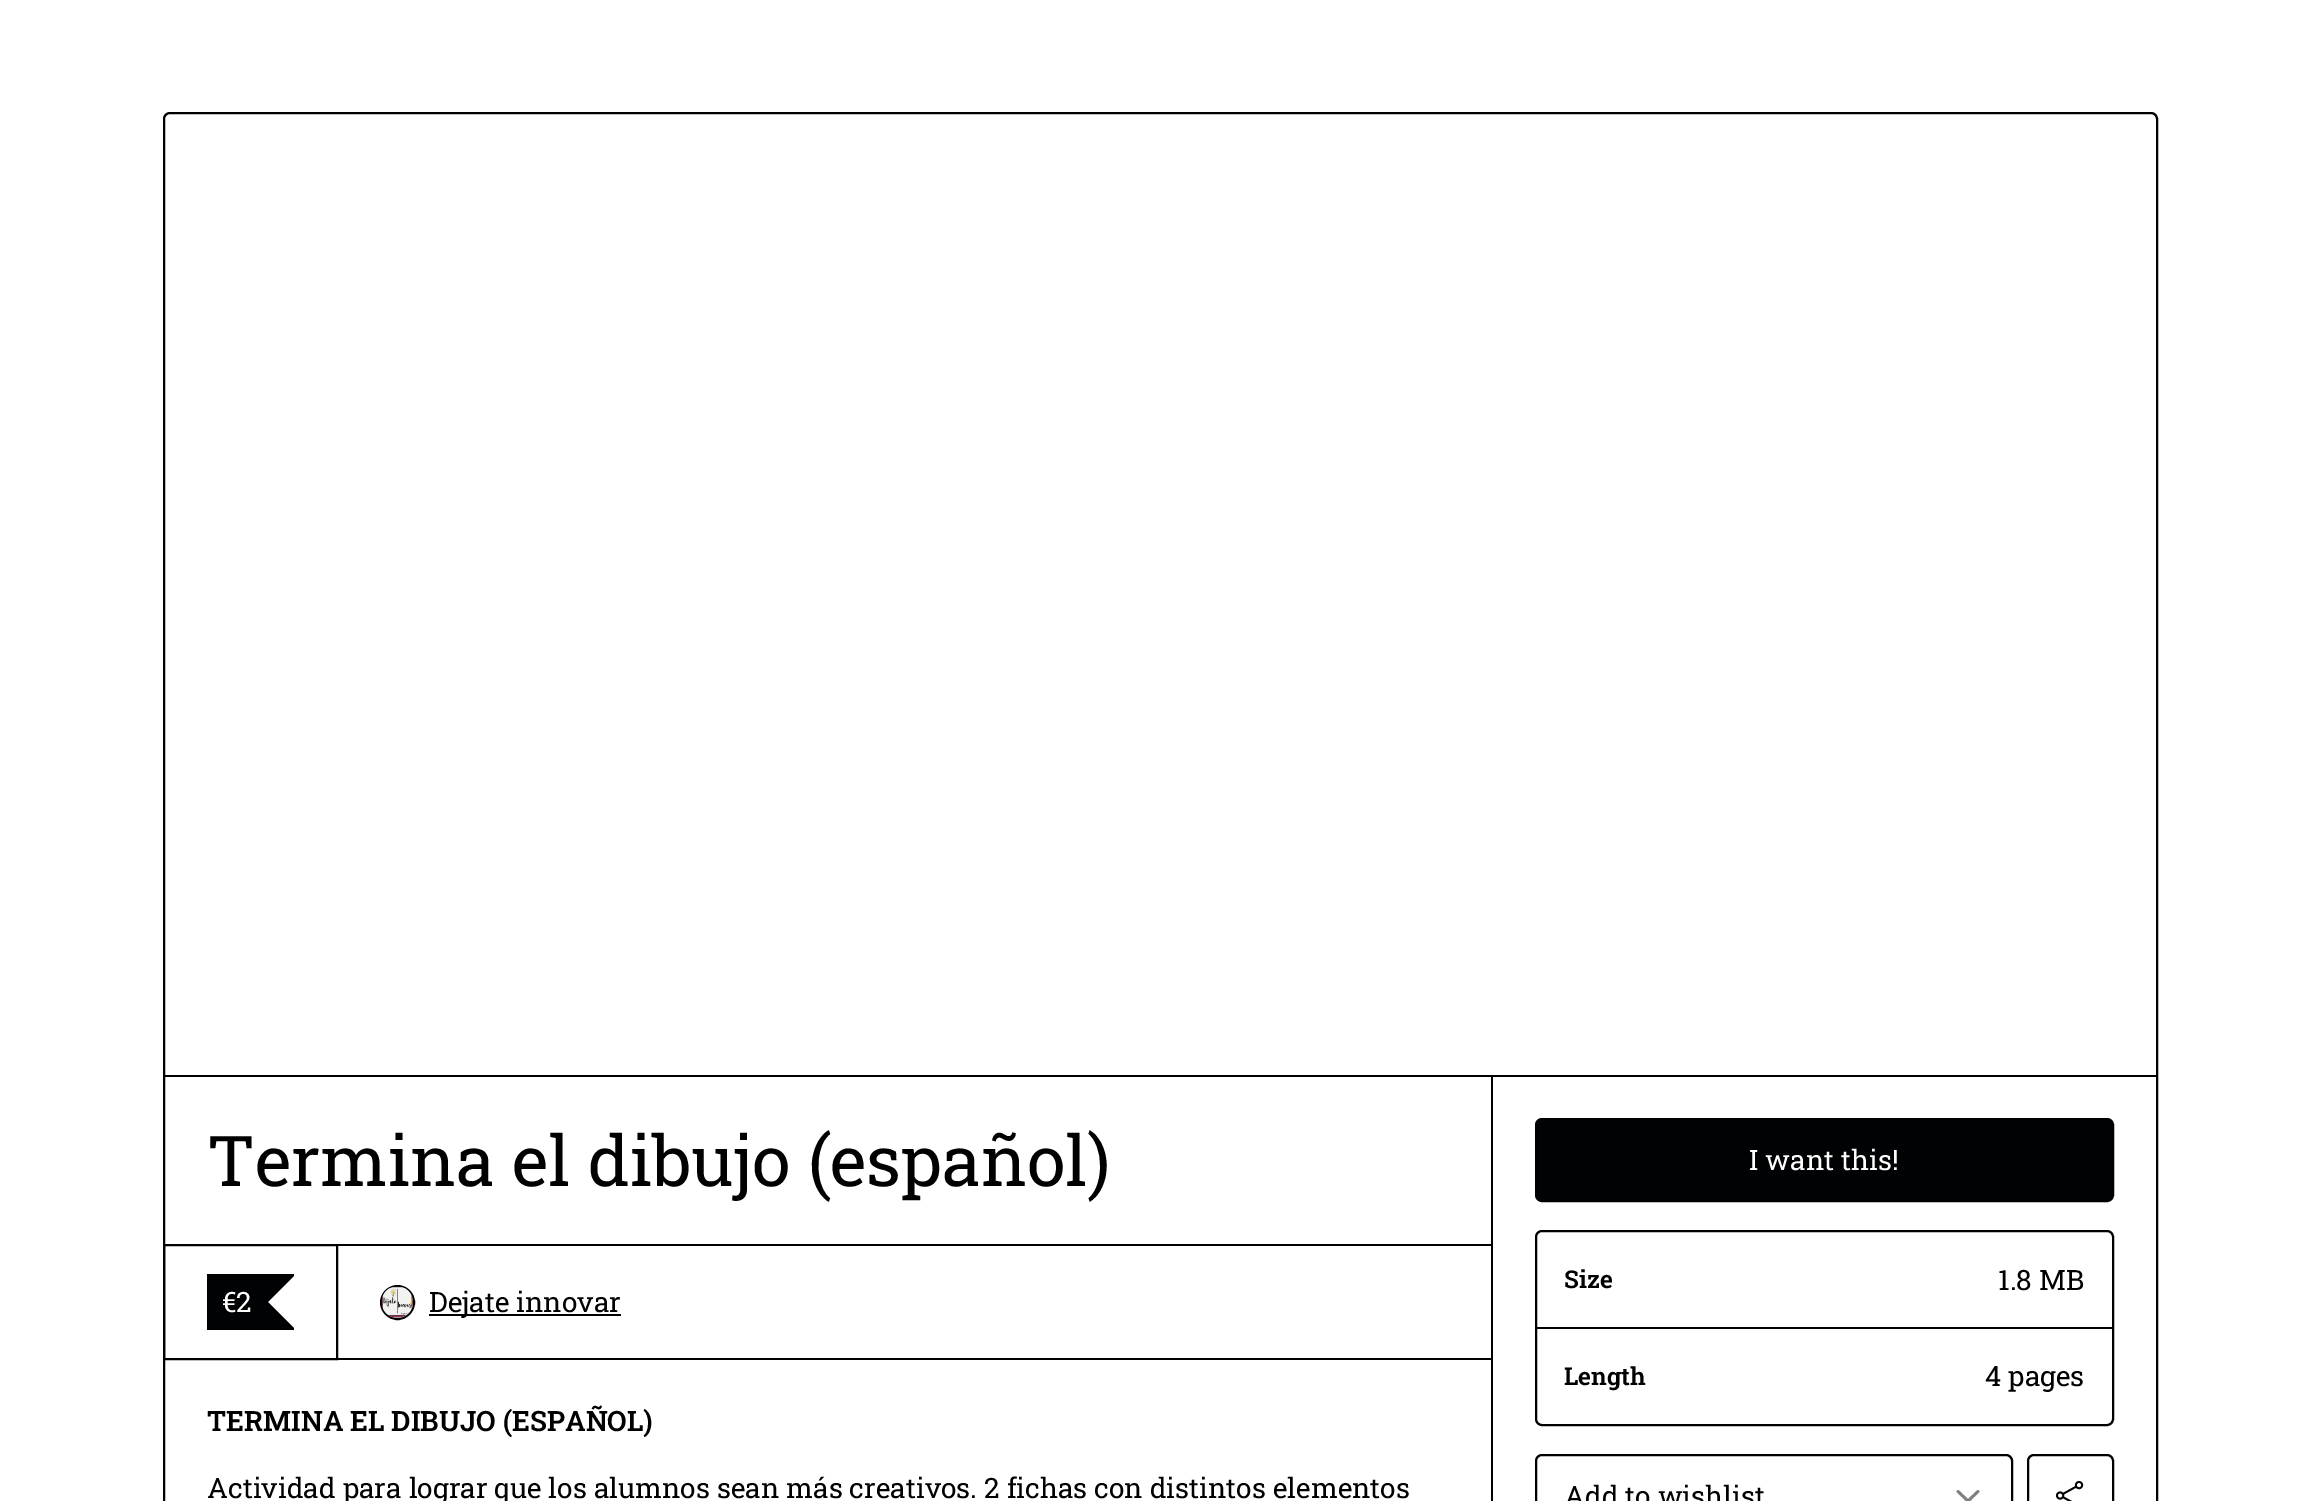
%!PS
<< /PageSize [2320 1501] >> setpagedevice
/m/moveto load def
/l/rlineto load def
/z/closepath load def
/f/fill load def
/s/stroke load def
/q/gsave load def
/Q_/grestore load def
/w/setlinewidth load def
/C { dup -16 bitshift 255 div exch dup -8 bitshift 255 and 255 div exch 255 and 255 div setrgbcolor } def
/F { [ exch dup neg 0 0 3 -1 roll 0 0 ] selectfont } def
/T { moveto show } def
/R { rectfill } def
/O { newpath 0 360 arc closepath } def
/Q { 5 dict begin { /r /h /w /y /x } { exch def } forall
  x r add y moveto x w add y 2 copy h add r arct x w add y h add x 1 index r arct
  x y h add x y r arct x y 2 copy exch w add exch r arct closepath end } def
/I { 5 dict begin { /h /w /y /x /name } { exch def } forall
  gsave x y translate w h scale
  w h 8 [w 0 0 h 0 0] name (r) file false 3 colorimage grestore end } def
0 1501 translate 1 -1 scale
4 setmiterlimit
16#FFFFFF C
0 0 2320 1501 R
16#000000 C
2 w
164 113 1993 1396 6 Q s
1491 1076 2 425 R
165 1075 1991 2 R
/RobotoSlab-Regular 70 F
(Termina el dibujo \(español\)) 207 1186 T
338 1244 1153 2 R
164 1245 173 114 rectstroke
207 1274 87 2 R
207 1328 87 2 R
207 1274 2 56 R
16#010203 C
208 1276 58 52 R
16#000000 C
266 1276 m 28 0 l -26 26 l z 294 1328 m -28 0 l 2 -26 l z f
266 1300 2 4 R
16#010203 C
264 1276 m 28 0 l -26 26 l z 292 1328 m -28 0 l 2 -26 l z f
/RobotoSlab-Regular 28 F
16#FFFFFF C
(€2) 222 1312 T
16#000000 C
397.5 1302.5 16.5 O s
(1.rgb) 381 1286 32 32 I
429 1314 192 2 R
(Dejate innovar) 429 1312 T
338 1358 1153 2 R
/RobotoSlab-SemiBold 28 F
(TERMINA EL DIBUJO \(ESPAÑOL\)) 207 1431 T
/RobotoSlab-Regular 28 F
(Actividad para lograr que los alumnos sean más creativos. 2 fichas con distintos elementos) 207 1498 T
16#010203 C
1536 1119 577 82 6 Q q f Q_
16#000000 C
s
16#FFFFFF C
(I want this!) 1749 1170 T
16#000000 C
1536 1231 577 194 6 Q s
1537 1327 575 2 R
/RobotoSlab-SemiBold 24.5 F
(Size) 1564 1288 T
/RobotoSlab-Regular 28 F
(1.8 MB) 1998 1290 T
/RobotoSlab-SemiBold 24.5 F
(Length) 1564 1385 T
/RobotoSlab-Regular 28 F
(4 pages) 1985 1386 T
1536 1455 476 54 6 Q s
(Add to wishlist) 1564 1506 T
16#808080 C
2.8 w
1 setlinecap
1 setlinejoin
1978 1491.5 m -10 9.5 l -10 -9.5 l s
16#000000 C
2 w
0 setlinecap
0 setlinejoin
2028 1455 85 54 6 Q s
(2.rgb) 2055 1480 29 21 I
showpage
